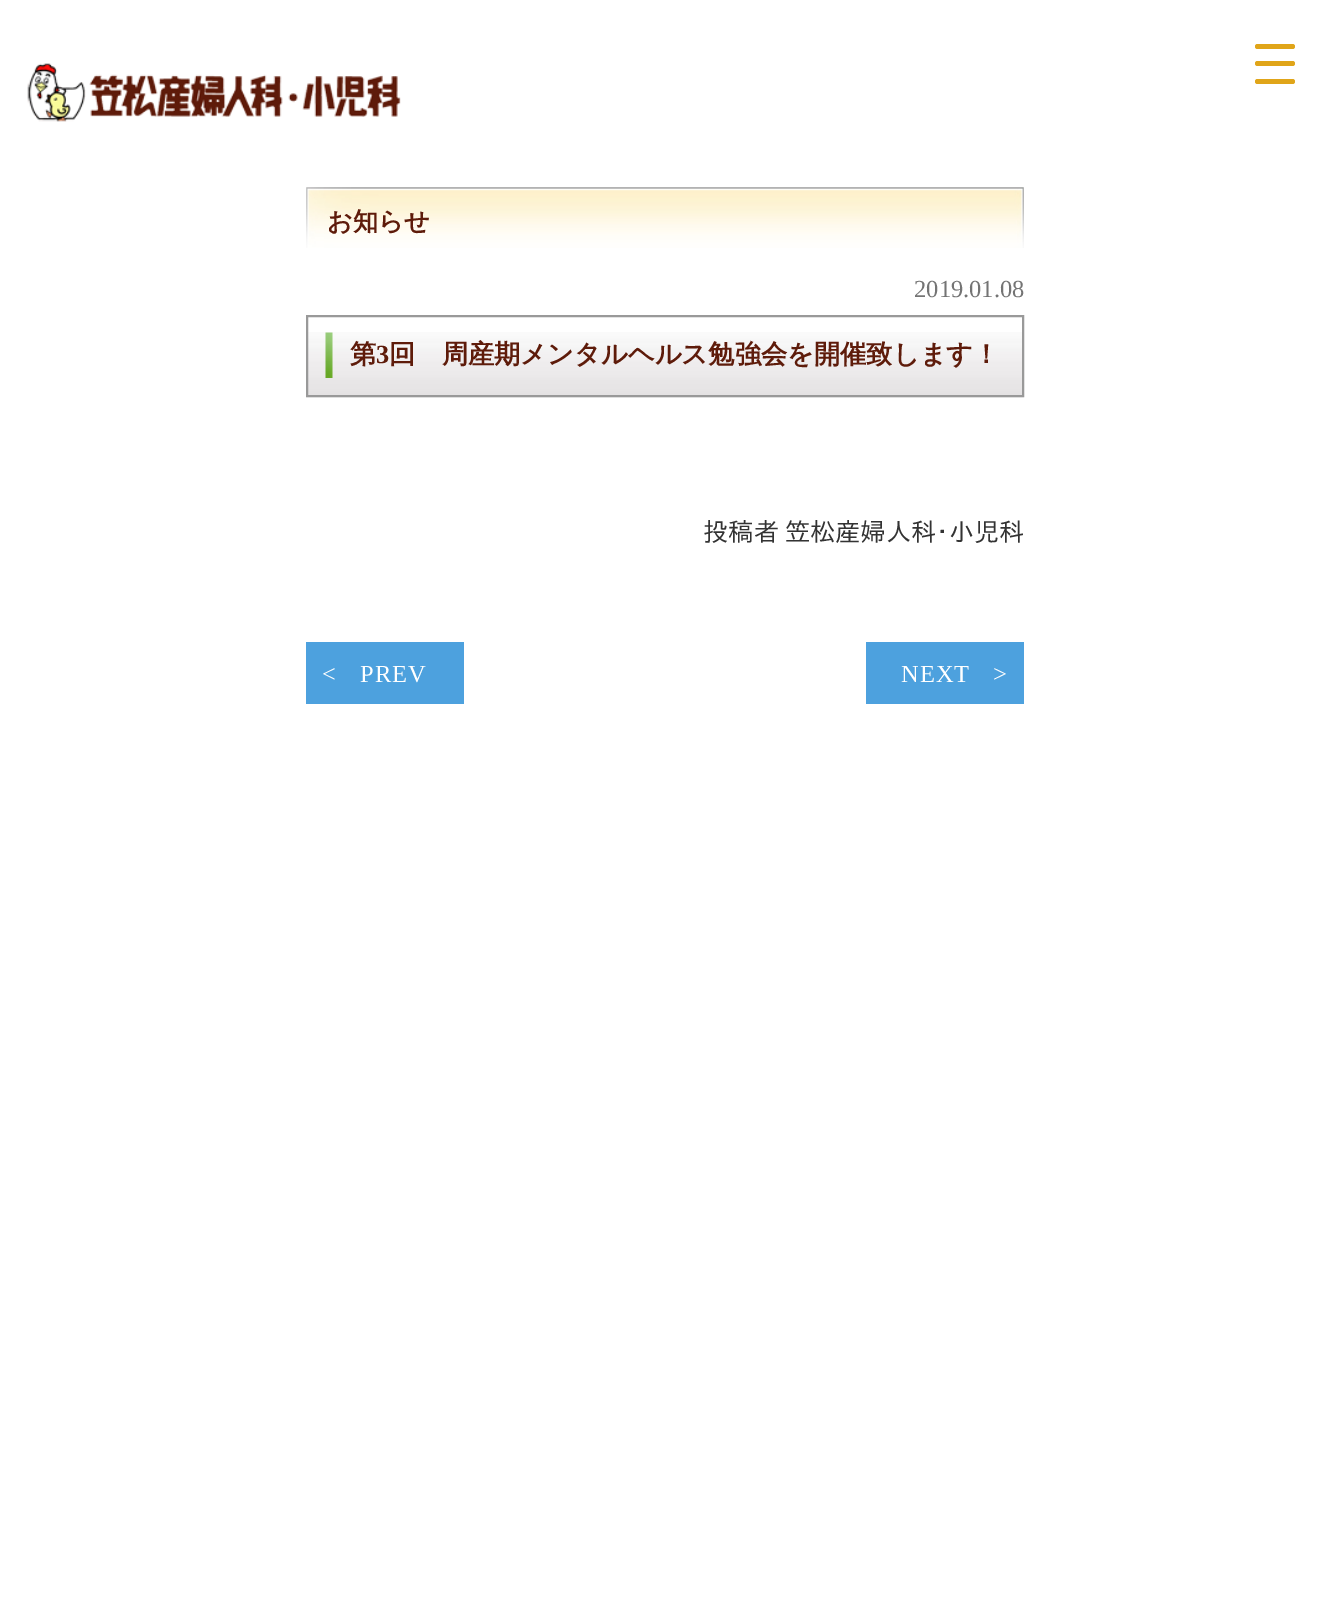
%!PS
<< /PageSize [1330 1599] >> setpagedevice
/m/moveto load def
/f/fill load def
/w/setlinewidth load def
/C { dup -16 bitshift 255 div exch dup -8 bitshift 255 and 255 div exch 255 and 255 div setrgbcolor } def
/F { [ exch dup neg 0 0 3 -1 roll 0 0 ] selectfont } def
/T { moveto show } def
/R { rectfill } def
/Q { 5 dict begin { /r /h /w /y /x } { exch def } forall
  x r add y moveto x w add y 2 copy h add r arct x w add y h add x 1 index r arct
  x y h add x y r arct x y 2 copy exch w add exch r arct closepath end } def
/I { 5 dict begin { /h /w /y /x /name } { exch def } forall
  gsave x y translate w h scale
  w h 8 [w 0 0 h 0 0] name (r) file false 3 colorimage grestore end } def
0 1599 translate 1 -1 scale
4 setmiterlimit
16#FFFFFF C
0 0 1330 1599 R
(1.rgb) 27 63 374 59 I
16#E0A519 C
1255 44 40 5 2.5 Q f
1255 61 40 5 2.5 Q f
1255 79 40 5 2.5 Q f
(2.rgb) 306 187 718 61 I
/WenQuanYiZenHei-Bold 25.25 F
16#5E1B0A C
(お知らせ) 327 230 T
/LiberationSerif-Regular 24.5 F
16#747474 C
(2019.01.08) 914 297 T
(3.rgb) 306 332 718 66 I
16#999999 C
2 w
307 316 716 80 rectstroke
/WenQuanYiZenHei-Bold 26.25 F
16#5E1B0A C
(第) 350 363 T
/LiberationSerif-Bold 26.25 F
(3) 376 363 T
/WenQuanYiZenHei-Bold 26.25 F
(回　周産期メンタルヘルス勉強会を開催致します！) 389 363 T
/IPAPGothic-Regular 25.25 F
16#333333 C
703 541 m -1 0 32 (投稿者 笠松産婦人科･小児科) widthshow
16#4DA1DE C
306 642 158 62 R
/LiberationSerif-Regular 24.5 F
16#FFFFFF C
322 682 m 1 0 (<) ashow
360 682 m 1 0 (PREV) ashow
16#4DA1DE C
866 642 158 62 R
16#FFFFFF C
901 682 m 1 0 (NEXT) ashow
993 682 m 1 0 (>) ashow
showpage
